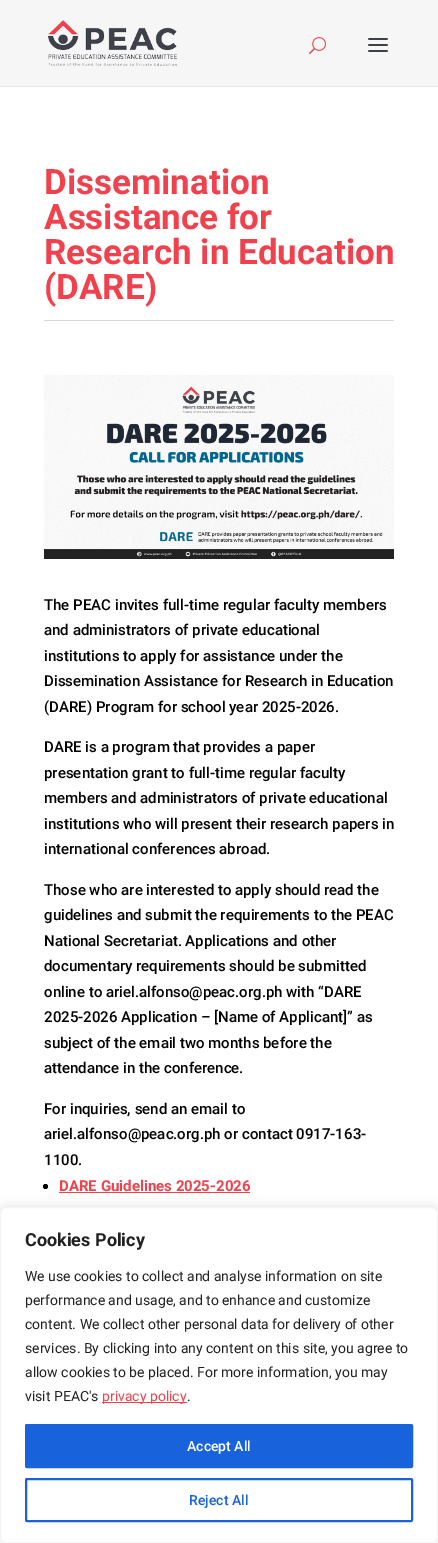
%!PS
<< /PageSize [438 1543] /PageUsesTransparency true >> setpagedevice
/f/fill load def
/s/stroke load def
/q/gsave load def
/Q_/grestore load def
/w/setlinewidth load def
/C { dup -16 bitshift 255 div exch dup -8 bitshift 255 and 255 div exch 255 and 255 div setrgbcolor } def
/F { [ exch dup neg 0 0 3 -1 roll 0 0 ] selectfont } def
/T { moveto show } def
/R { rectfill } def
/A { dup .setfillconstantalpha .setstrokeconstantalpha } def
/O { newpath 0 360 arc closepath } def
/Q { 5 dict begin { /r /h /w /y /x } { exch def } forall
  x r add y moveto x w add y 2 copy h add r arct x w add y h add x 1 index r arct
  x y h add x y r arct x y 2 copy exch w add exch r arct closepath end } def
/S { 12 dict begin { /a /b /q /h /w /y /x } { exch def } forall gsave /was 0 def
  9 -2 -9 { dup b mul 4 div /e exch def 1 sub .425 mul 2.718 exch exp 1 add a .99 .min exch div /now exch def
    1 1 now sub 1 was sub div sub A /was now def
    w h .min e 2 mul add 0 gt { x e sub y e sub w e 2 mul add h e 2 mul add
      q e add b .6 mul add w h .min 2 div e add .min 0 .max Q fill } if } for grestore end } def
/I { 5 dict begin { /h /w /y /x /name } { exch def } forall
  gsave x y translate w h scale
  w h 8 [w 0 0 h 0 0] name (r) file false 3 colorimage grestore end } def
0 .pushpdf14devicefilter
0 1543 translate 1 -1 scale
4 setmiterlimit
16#FFFFFF C
0 0 438 1543 R
16#E6E6E6 C
0 86 438 1 R
16#F6F6F6 C
0 0 438 86 R
(1.rgb) 48 20 129 46 I
(2.rgb) 309 37 17 18 I
(3.rgb) 368 38 20 14 I
/Roboto-Bold 35 F
16#F0414C C
(Dissemination) 44 194 T
(Assistance for) 44 229 T
(Research in Education) 44 264 T
(\(DARE\)) 44 299 T
16#D9D9D9 C
44 320 350 1 R
(4.rgb) 44 375 350 184 I
/Roboto-Medium 15 F
16#000000 C
(The PEAC invites full-time regular faculty members) 44 610 T
(and administrators of private educational) 44 635 T
(institutions to apply for assistance under the) 44 661 T
(Dissemination Assistance for Research in Education) 44 686 T
(\(DARE\) Program for school year 2025-2026.) 44 712 T
(DARE is a program that provides a paper) 44 752 T
(presentation grant to full-time regular faculty) 44 778 T
(members and administrators of private educational) 44 803 T
(institutions who will present their research papers in) 44 829 T
(international conferences abroad.) 44 854 T
(Those who are interested to apply should read the) 44 895 T
(guidelines and submit the requirements to the PEAC) 44 920 T
(National Secretariat. Applications and other) 44 946 T
(documentary requirements should be submitted) 44 971 T
(online to ariel.alfonso@peac.org.ph with “DARE) 44 997 T
(2025-2026 Application – [Name of Applicant]” as) 44 1022 T
(subject of the email two months before the) 44 1048 T
(attendance in the conference.) 44 1073 T
(For inquiries, send an email to) 44 1114 T
(ariel.alfonso@peac.org.ph or contact 0917-163-) 44 1139 T
(1100.) 44 1165 T
45.5 1186.5 2.5 O f
/Roboto-Bold 15 F
16#F0414C C
(DARE Guidelines 2025-2026) 59 1191 T
59 1192 191 1 R
16#ACABAB C
0 1206 438 336 6 5 .3 S
16#FFFFFF C
.5 1207.5 437 335 5.5 Q q f Q_
16#F4F4F4 C
s
/Roboto-Bold 18 F
16#212121 C
(Cookies Policy) 25 1246 T
/Roboto-Regular 14 F
(We use cookies to collect and analyse information on site) 25 1281 T
(performance and usage, and to enhance and customize) 25 1305 T
(content. We collect other personal data for delivery of other) 25 1329 T
(services. By clicking into any content on this site, you agree to) 25 1353 T
(allow cookies to be placed. For more information, you may) 25 1377 T
(visit PEAC's) 25 1401 T
16#F0414C C
102 1402 85 1 R
(privacy policy) 102 1401 T
16#212121 C
(.) 187 1401 T
16#1863DC C
26 1425 386 42 1 Q q f Q_
2 w
s
/Roboto-Medium 14 F
16#FFFFFF C
(Accept All) 187 1451 T
16#1863DC C
26 1479 386 42 1 Q s
(Reject All) 189 1505 T
.poppdf14devicefilter showpage
